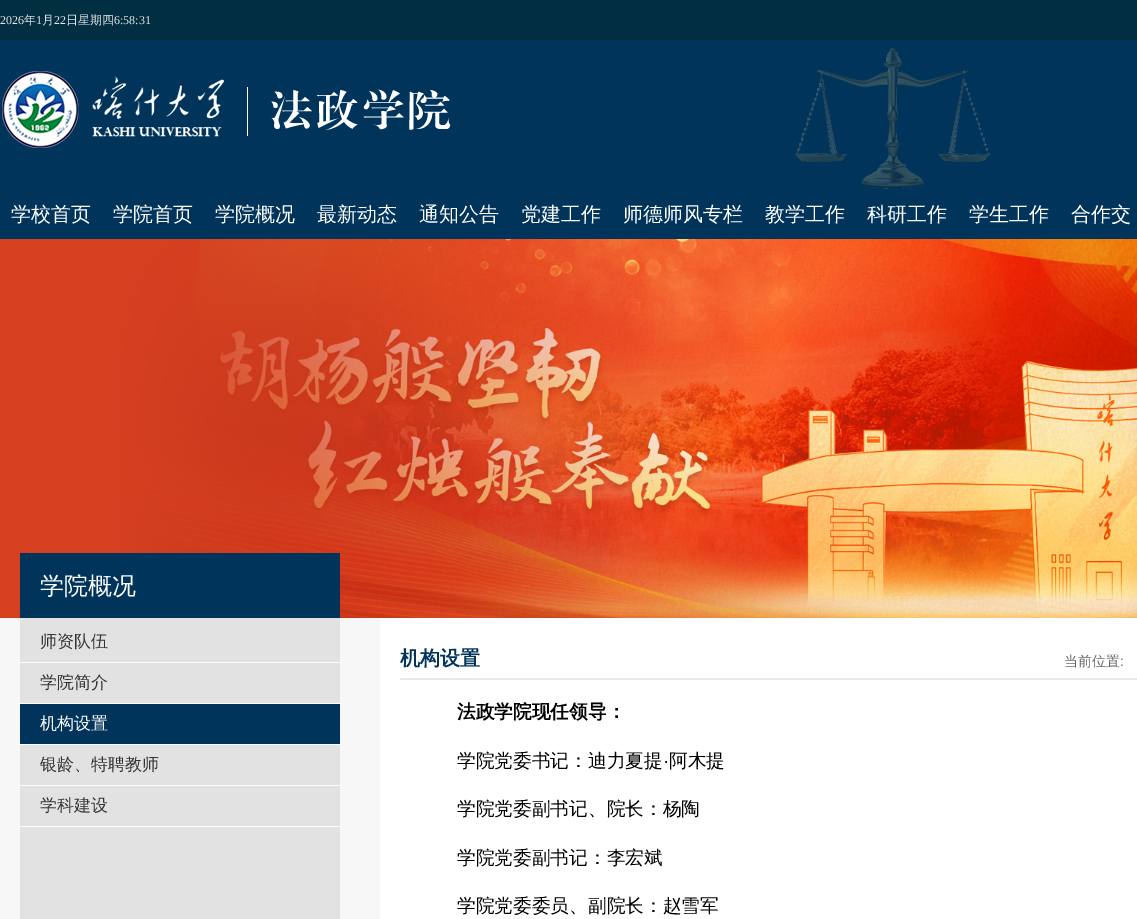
%!PS
<< /PageSize [1137 919] >> setpagedevice
/C { dup -16 bitshift 255 div exch dup -8 bitshift 255 and 255 div exch 255 and 255 div setrgbcolor } def
/F { [ exch dup neg 0 0 3 -1 roll 0 0 ] selectfont } def
/T { moveto show } def
/R { rectfill } def
/I { 5 dict begin { /h /w /y /x /name } { exch def } forall
  gsave x y translate w h scale
  w h 8 [w 0 0 h 0 0] name (r) file false 3 colorimage grestore end } def
0 919 translate 1 -1 scale
4 setmiterlimit
16#F7F7F7 C
0 0 1137 919 R
16#012E40 C
0 0 1137 40 R
/LiberationSerif-Regular 12 F
16#E5E5E5 C
(2026) 0 24 T
/WenQuanYiZenHei-Medium 12 F
(年) 24 24 T
/LiberationSerif-Regular 12 F
(1) 36 24 T
/WenQuanYiZenHei-Medium 12 F
(月) 42 24 T
/LiberationSerif-Regular 12 F
(22) 54 24 T
/WenQuanYiZenHei-Medium 12 F
(日星期四) 66 24 T
/LiberationSerif-Regular 12 F
(6:58:31) 114 24 T
16#00345A C
0 40 1137 199 R
(1.rgb) 794 44 196 145 I
(2.rgb) 2 71 449 77 I
/WenQuanYiZenHei-Medium 20 F
16#FFFFFF C
(学校首页) 11 221 T
(学院首页) 113 221 T
(学院概况) 215 221 T
(最新动态) 317 221 T
(通知公告) 419 221 T
(党建工作) 521 221 T
(师德师风专栏) 623 221 T
(教学工作) 765 221 T
(科研工作) 867 221 T
(学生工作) 969 221 T
(合作交) 1071 221 T
(3.rgb) 0 239 1137 379 I
16#E2E2E2 C
20 618 320 301 R
16#00345A C
20 553 320 65 R
/WenQuanYiZenHei-Medium 24 F
16#FFFFFF C
(学院概况) 40 594 T
16#FCFCFC C
20 662 320 1 R
/WenQuanYiZenHei-Medium 17 F
16#333333 C
(师资队伍) 40 647 T
16#FCFCFC C
20 703 320 1 R
16#333333 C
(学院简介) 40 688 T
16#00345A C
20 704 320 40 R
16#FCFCFC C
20 744 320 1 R
16#FFFFFF C
(机构设置) 40 729 T
16#FCFCFC C
20 785 320 1 R
16#333333 C
(银龄、特聘教师) 40 770 T
16#FCFCFC C
20 826 320 1 R
16#333333 C
(学科建设) 40 811 T
16#FFFFFF C
380 618 757 301 R
/WenQuanYiZenHei-Bold 20 F
16#00345A C
(机构设置) 400 665 T
/WenQuanYiZenHei-Medium 14 F
16#666666 C
(当前位置) 1064 666 T
/LiberationSans-Regular 14 F
(:) 1120 666 T
16#E8E8E8 C
400 678 737 2 R
/WenQuanYiZenHei-Bold 18.7 F
16#000000 C
(法政学院现任领导：) 457 718 T
/WenQuanYiZenHei-Medium 18.7 F
(学院党委书记：迪力夏提) 457 767 T
/LiberationSans-Regular 18.7 F
(·) 663 767 T
/WenQuanYiZenHei-Medium 18.7 F
(阿木提) 669 767 T
(学院党委副书记、院长：杨陶) 457 815 T
(学院党委副书记：李宏斌) 457 864 T
(学院党委委员、副院长：赵雪军) 457 912 T
showpage
